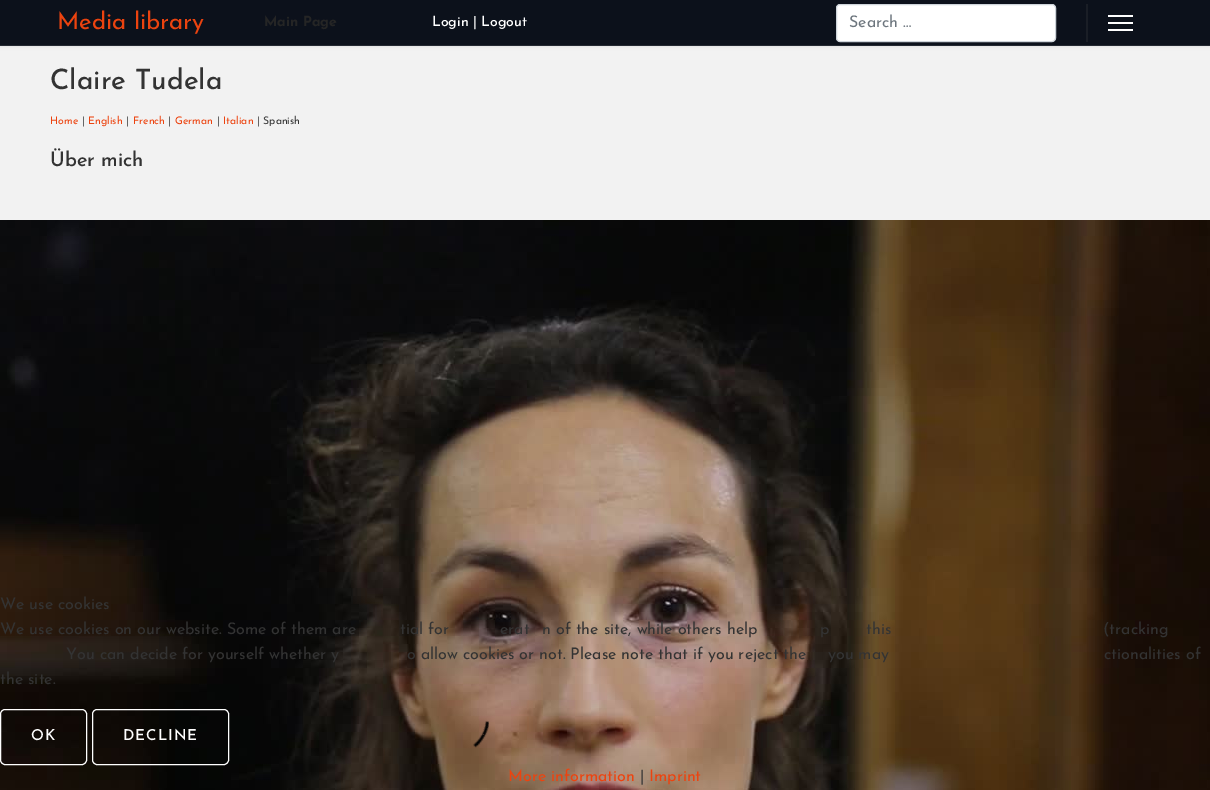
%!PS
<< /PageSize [1210 790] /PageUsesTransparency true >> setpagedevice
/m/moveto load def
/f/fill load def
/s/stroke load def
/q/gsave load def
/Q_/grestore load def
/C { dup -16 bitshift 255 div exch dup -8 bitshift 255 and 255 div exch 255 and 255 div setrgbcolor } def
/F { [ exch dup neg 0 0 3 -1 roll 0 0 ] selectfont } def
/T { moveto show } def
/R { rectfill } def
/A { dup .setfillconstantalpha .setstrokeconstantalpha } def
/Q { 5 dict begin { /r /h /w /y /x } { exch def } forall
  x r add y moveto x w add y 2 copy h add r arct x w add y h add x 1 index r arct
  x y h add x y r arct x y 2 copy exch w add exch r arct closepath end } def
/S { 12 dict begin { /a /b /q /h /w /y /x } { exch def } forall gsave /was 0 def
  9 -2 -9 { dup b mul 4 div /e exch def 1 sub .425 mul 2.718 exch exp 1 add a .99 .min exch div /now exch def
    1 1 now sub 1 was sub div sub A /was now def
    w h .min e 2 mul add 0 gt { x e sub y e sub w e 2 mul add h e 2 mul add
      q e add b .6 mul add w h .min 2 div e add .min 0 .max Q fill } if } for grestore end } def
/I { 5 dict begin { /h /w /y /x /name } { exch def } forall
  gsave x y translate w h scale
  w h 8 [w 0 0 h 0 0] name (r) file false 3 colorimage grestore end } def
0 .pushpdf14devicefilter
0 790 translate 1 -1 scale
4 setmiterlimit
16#F2F2F2 C
0 0 1210 790 R
16#000000 C
0 0 1210 46 0 2 .1 S
16#0C111B C
0 0 1210 45 R
16#242932 C
0 45 1210 1 R
/JosefinSans-Regular 24 F
16#EC430F C
(Media library) 57 29 T
/JosefinSans-Bold 14 F
16#252525 C
(Main Page) 264 26 T
/JosefinSans-Medium 14 F
16#FFFFFF C
(Login | Logout) 432 26 T
16#1A1E26 C
1086 4 2 38 R
16#FFFFFF C
836.5 4.5 219 37 3.5 Q q f Q_
16#CED4DA C
s
/JosefinSans-Regular 16 F
16#6C757D C
(Search …) 849 27 T
16#FFFFFF C
1108 15 25 2 R
1108 22 25 2 R
1108 29 25 2 R
/JosefinSans-Medium 28 F
16#333333 C
(Claire Tudela) 50 89 T
/JosefinSans-Regular 10.5 F
16#EC430F C
(Home) 50 124 T
16#333333 C
(|) 82 124 T
16#EC430F C
(English) 88 124 T
16#333333 C
(|) 126 124 T
16#EC430F C
(French) 133 124 T
16#333333 C
(|) 168 124 T
16#EC430F C
(German) 175 124 T
16#333333 C
(|) 217 124 T
16#EC430F C
(Italian) 223 124 T
16#333333 C
(| Spanish) 257 124 T
/JosefinSans-Medium 20 F
(Über mich) 50 166 T
(1.rgb) 0 220 1210 570 I
/JosefinSans-Regular 16 F
(We use cookies) 0 609 T
(We use cookies on our website. Some of them are) 0 634 T
(tial for) 400 634 T
(erat) 500 634 T
(n of the site, while others help) 542 634 T
(p) 820 634 T
(this) 866 634 T
(\(tracking) 1103 634 T
(You can decide for yourself whether y) 66 659 T
(o allow cookies or not. Please note that if you reject the) 407 659 T
(you may) 828 659 T
(ctionalities of) 1104 659 T
(the site.) 0 684 T
16#FFFFFF C
.5 709.5 86 55 4.5 Q s
/JosefinSans-Medium 15 F
31 740 m 1 0 (OK) ashow
92.5 709.5 136 55 4.5 Q s
123 740 m 1 0 (DECLINE) ashow
/JosefinSans-Regular 16 F
16#EC430F C
(More information) 508 781 T
16#333333 C
(|) 640 781 T
16#EC430F C
(Imprint) 649 781 T
.poppdf14devicefilter showpage
